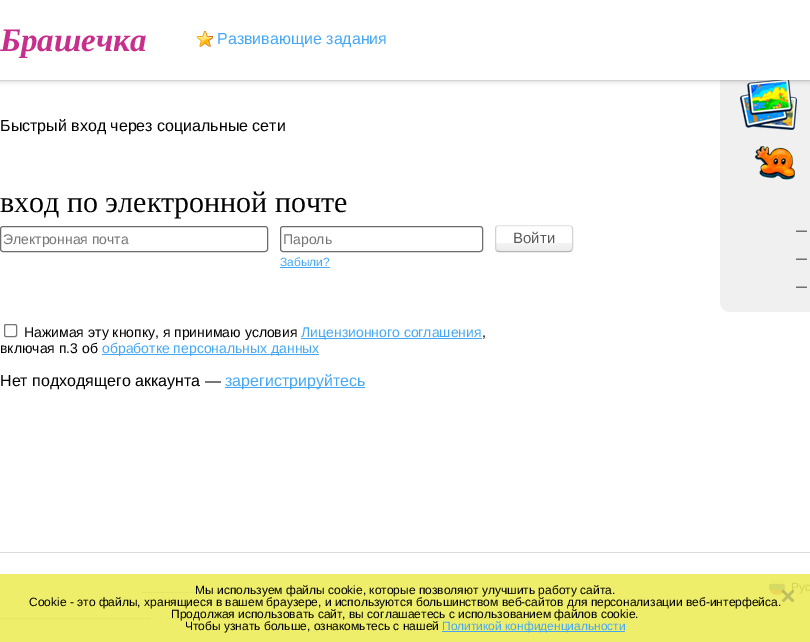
%!PS
<< /PageSize [810 642] /PageUsesTransparency true >> setpagedevice
/m/moveto load def
/l/rlineto load def
/c/rcurveto load def
/f/fill load def
/s/stroke load def
/C { dup -16 bitshift 255 div exch dup -8 bitshift 255 and 255 div exch 255 and 255 div setrgbcolor } def
/F { [ exch dup neg 0 0 3 -1 roll 0 0 ] selectfont } def
/T { moveto show } def
/R { rectfill } def
/A { dup .setfillconstantalpha .setstrokeconstantalpha } def
/Q { 5 dict begin { /r /h /w /y /x } { exch def } forall
  x r add y moveto x w add y 2 copy h add r arct x w add y h add x 1 index r arct
  x y h add x y r arct x y 2 copy exch w add exch r arct closepath end } def
/S { 12 dict begin { /a /b /q /h /w /y /x } { exch def } forall gsave /was 0 def
  9 -2 -9 { dup b mul 4 div /e exch def 1 sub .425 mul 2.718 exch exp 1 add a .99 .min exch div /now exch def
    1 1 now sub 1 was sub div sub A /was now def
    w h .min e 2 mul add 0 gt { x e sub y e sub w e 2 mul add h e 2 mul add
      q e add b .6 mul add w h .min 2 div e add .min 0 .max Q fill } if } for grestore end } def
/I { 5 dict begin { /h /w /y /x /name } { exch def } forall
  gsave x y translate w h scale
  w h 8 [w 0 0 h 0 0] name (r) file false 3 colorimage grestore end } def
0 .pushpdf14devicefilter
0 642 translate 1 -1 scale
4 setmiterlimit
16#FFFFFF C
0 0 810 642 R
16#EEEE6B C
0 574 810 68 R
16#F0F0F0 C
720 -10 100 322 10 Q f
(3.rgb) 740 80 57 50 I
16#000000 C
0 1 810 80 0 2.5 .2 S
0.05 A
0 80 810 1 R
1 A
16#FFFFFF C
0 0 810 80 R
/LiberationSerif-BoldItalic 33 F
16#C62F8B C
(Брашечка) 0 51 T
(1.rgb) 197 31 16 16 I
/LiberationSans-Regular 16 F
16#46A8F4 C
(Развивающие задания) 217 44 T
16#000000 C
(Быстрый вход через социальные сети) 0 131 T
/LiberationSerif-Regular 30 F
(вход по электронной почте) 0 212 T
16#6C6C6C C
.5 226.5 267 25 2.5 Q s
/LiberationSans-Regular 14 F
16#757575 C
(Электронная почта) 3 244 T
16#6C6C6C C
280.5 226.5 202 25 2.5 Q s
16#757575 C
(Пароль) 283 244 T
/LiberationSans-Regular 12 F
16#46A8F4 C
(Забыли?) 280 266 T
280 267 50 1 R
(2.rgb) 495 243 78 9 I
16#E4E4E4 C
496.5 226.5 m .5 -.5 1.5 -1 2.5 -1 c 70 0 l 1 0 2 .5 2.5 1 c s
16#D2D2D2 C
571.5 226.5 m .5 .5 1 1.5 1 2.5 c 0 19 l 0 1 -.5 2 -1 2.5 c s
16#B4B4B4 C
571.5 250.5 m -.5 .5 -1.5 1 -2.5 1 c -70 0 l -1 0 -2 -.5 -2.5 -1 c s
16#D2D2D2 C
496.5 250.5 m -.5 -.5 -1 -1.5 -1 -2.5 c 0 -19 l 0 -1 .5 -2 1 -2.5 c s
/LiberationSans-Regular 15 F
16#5A5A5A C
(Войти) 513 243 T
16#767676 C
4.5 324.5 12 12 1.5 Q s
/LiberationSans-Regular 14 F
16#000000 C
(Нажимая эту кнопку, я принимаю условия) 24 337 T
16#46A8F4 C
301 338 181 1 R
(Лицензионного соглашения) 301 337 T
16#000000 C
(,) 482 337 T
(включая п.3 об) 0 353 T
16#46A8F4 C
102 354 217 1 R
(обработке персональных данных) 102 353 T
/LiberationSans-Regular 16 F
16#000000 C
(Нет подходящего аккаунта —) 0 386 T
16#46A8F4 C
225 387 140 1 R
(зарегистрируйтесь) 225 386 T
(4.rgb) 755 145 40 35 I
/LiberationSans-Regular 11 F
16#000000 C
(—) 796 234 T
(—) 796 262 T
(—) 796 290 T
16#DBDBDB C
0 552 810 1 R
(5.rgb) 769 579 16 16 I
/LiberationSans-Regular 12 F
16#D4D451 C
(Рус) 791 591 T
16#E6E663 C
142 592 108 1 R
0 618 151 1 R
167 618 66 1 R
250 618 51 1 R
318 618 90 1 R
424 618 68 1 R
16#000000 C
(Мы используем файлы cookie, которые позволяют улучшить работу сайта.) 195 594 T
(Cookie - это файлы, хранящиеся в вашем браузере, и используются большинством веб-сайтов для персонализации веб-интерфейса.) 29 606 T
(Продолжая использовать сайт, вы соглашаетесь с использованием файлов cookie.) 171 618 T
(Чтобы узнать больше, ознакомьтесь с нашей) 185 630 T
16#46A8F4 C
442 631 183 1 R
(Политикой конфиденциальности) 442 630 T
(6.rgb) 781 589 14 14 I
.poppdf14devicefilter showpage
